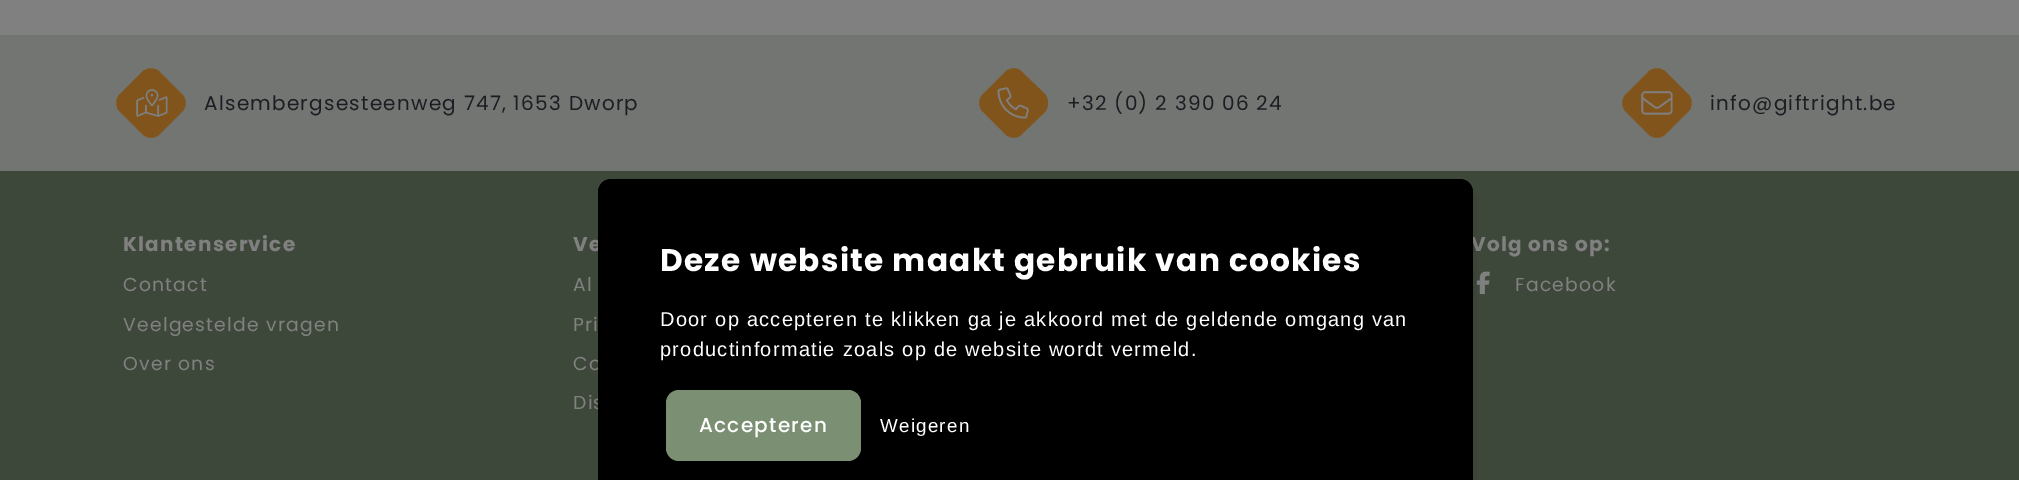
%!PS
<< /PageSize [2019 480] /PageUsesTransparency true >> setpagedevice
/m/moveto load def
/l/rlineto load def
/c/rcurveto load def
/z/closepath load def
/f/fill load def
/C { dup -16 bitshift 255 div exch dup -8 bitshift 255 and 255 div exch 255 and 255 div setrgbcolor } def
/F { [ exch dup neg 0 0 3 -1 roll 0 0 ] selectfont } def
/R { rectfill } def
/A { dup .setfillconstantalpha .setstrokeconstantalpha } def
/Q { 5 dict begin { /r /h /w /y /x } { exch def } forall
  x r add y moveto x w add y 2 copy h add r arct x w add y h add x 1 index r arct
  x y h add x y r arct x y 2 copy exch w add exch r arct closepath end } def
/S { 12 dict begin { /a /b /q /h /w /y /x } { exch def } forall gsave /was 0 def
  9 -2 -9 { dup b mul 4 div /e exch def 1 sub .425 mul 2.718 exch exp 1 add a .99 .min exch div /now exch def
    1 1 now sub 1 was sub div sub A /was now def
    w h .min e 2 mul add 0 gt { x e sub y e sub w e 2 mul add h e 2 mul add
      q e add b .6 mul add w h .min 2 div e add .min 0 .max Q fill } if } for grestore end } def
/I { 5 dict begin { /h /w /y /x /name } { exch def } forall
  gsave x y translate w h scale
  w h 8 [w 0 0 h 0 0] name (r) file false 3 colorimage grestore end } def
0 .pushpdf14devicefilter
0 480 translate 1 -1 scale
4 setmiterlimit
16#808080 C
0 0 2019 480 R
16#737572 C
0 35 2019 136 R
16#80541B C
160 72 m 22 22 l 5 5 5 13 0 18 c -22 22 l -5 5 -13 5 -18 0 c -22 -22 l -5 -5 -5 -13 0 -18 c 22 -22 l 5 -5 13 -5 18 0 c z f
(1.rgb) 136 89 32 28 I
/Poppins-Regular 20 F
16#1B1D23 C
204 110 m 1.25 0 (Alsembergsesteenweg 747, 1653 Dworp) ashow
16#80541B C
1022 72 m 23 22 l 4 5 4 13 0 18 c -23 22 l -4 5 -12 5 -17 0 c -22 -22 l -5 -5 -5 -13 0 -18 c 22 -22 l 5 -5 13 -5 17 0 c z f
(2.rgb) 997 87 32 32 I
16#1B1D23 C
1067 110 m 1.25 0 (+32 \(0\) 2 390 06 24) ashow
16#80541B C
1666 72 m 22 22 l 5 5 5 13 0 18 c -22 22 l -5 5 -13 5 -18 0 c -22 -22 l -5 -5 -5 -13 0 -18 c 22 -22 l 5 -5 13 -5 18 0 c z f
(3.rgb) 1641 91 32 24 I
16#1B1D23 C
1710 110 m 1.25 0 (info@giftright.be) ashow
16#3E483A C
0 171 2019 309 R
/Poppins-Bold 20 F
16#808080 C
123 251 m 1.25 0 (Klantenservice) ashow
/Poppins-Regular 18.75 F
123 291 m 1.25 0 (Contact) ashow
123 331 m 1.25 0 (Veelgestelde vragen) ashow
123 370 m 1.25 0 (Over ons) ashow
/Poppins-Bold 20 F
573 251 m 1.25 0 (Ve) ashow
/Poppins-Regular 18.75 F
573 291 m 1.25 0 (Al) ashow
573 331 m 1.25 0 (Pri) ashow
573 370 m 1.25 0 (Co) ashow
573 409 m 1.25 0 (Dis) ashow
/Poppins-Bold 20 F
1471 251 m 1.25 0 (Volg ons op:) ashow
(4.rgb) 1476 271 14 24 I
/Poppins-Regular 18.75 F
1515 291 m 1.25 0 (Facebook) ashow
16#000000 C
610 191 863 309 6 4.5 .15 S
598 179 875 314 13 Q f
/Poppins-Bold 31.25 F
16#FFFFFF C
660 271 m 1.25 0 (Deze website maakt gebruik van cookies) ashow
/LiberationSans-Regular 20 F
660 326 m 1.25 0 (Door op accepteren te klikken ga je akkoord met de geldende omgang van) ashow
660 356 m 1.25 0 (productinformatie zoals op de website wordt vermeld.) ashow
16#7B8F73 C
666 390 195 71 13 Q f
/Poppins-Medium 20 F
16#FFFFFF C
699 432 m 1.25 0 (Accepteren) ashow
/LiberationSans-Regular 18.75 F
880 432 m 1.25 0 (Weigeren) ashow
.poppdf14devicefilter showpage
